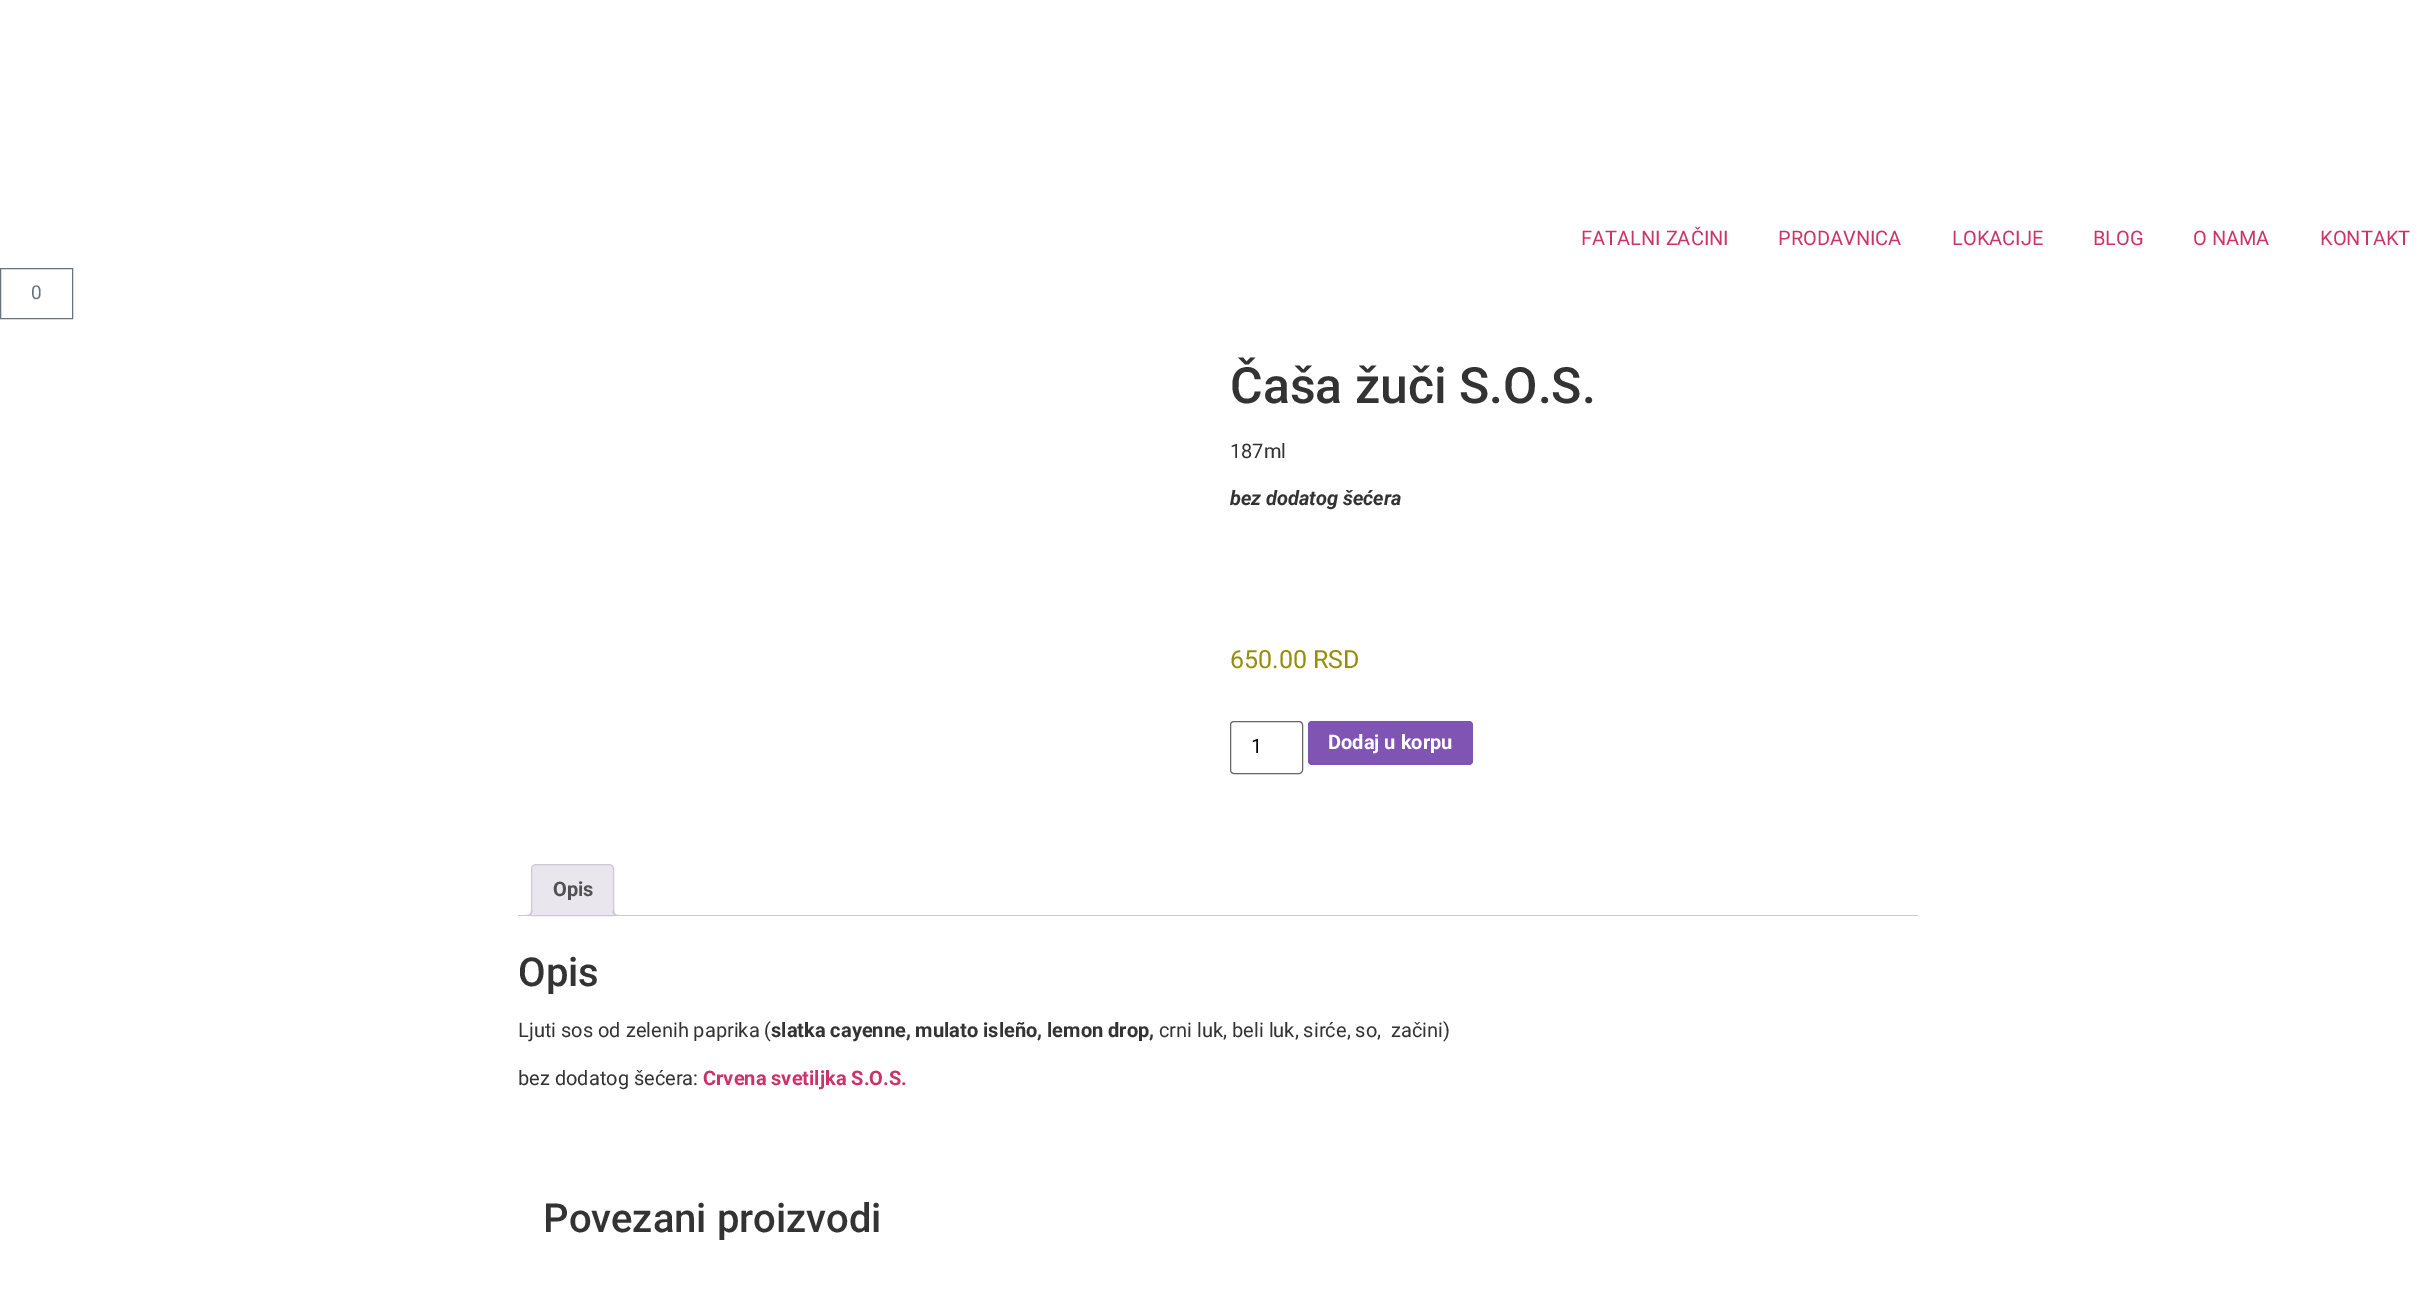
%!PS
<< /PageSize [2434 1297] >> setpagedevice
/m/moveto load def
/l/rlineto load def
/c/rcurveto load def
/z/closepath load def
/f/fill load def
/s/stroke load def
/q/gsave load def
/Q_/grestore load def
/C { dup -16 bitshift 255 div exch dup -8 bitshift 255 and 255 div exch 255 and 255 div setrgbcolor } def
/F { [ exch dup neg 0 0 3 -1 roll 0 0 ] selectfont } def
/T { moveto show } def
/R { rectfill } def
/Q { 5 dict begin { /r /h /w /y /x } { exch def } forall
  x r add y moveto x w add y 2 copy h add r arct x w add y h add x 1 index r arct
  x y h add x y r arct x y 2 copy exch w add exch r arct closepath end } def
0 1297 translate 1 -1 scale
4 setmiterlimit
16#FFFFFF C
0 0 2434 1297 R
/Roboto-Regular 20 F
16#CC3366 C
(FATALNI ZAČINI) 1581 245 T
(PRODAVNICA) 1778 245 T
(LOKACIJE) 1952 245 T
(BLOG) 2093 245 T
(O NAMA) 2193 245 T
(KONTAKT) 2320 245 T
16#69727D C
.5 268.5 72 50 rectstroke
/Roboto-Regular 19 F
(0) 31 299 T
/Roboto-Medium 50 F
16#333333 C
(Čaša žuči S.O.S.) 1230 403 T
/Roboto-Regular 20 F
(187ml) 1230 458 T
/Roboto-BoldItalic 20 F
(bez dodatog šećera) 1230 505 T
/Roboto-Regular 25 F
16#958E09 C
(650.00 RSD) 1230 668 T
16#666666 C
1230.5 721.5 72 52 3.5 Q s
/Roboto-Regular 20 F
16#000000 C
(1) 1251 753 T
16#7F54B3 C
1308 721 165 44 4 Q f
/Roboto-Bold 20 F
16#FFFFFF C
(Dodaj u korpu) 1328 749 T
16#E9E6ED C
536 864.5 m 73 0 l 2.5 0 4.5 2 4.5 4.5 c 0 46.5 l -82 0 l 0 -46.5 l 0 -2.5 2 -4.5 4.5 -4.5 c z q f Q_
16#CFC8D8 C
s
16#515151 C
(Opis) 553 896 T
q
518 864 1400 52 rectclip
16#E9E6ED C
529 916 m 0 3 l 4 0 6 -2 6 -6 c -3 0 l -.5 1.5 -1.5 2.5 -3 3 c z f
Q_
16#CFC8D8 C
526 910 m 6.5 0 l 0 4.5 -2 6 -6.5 6 c z 526 910 m 5 0 l 0 3.5 -1 5 -5 5 c z eofill
q
518 864 1400 52 rectclip
16#E9E6ED C
610 913 m 0 4 2 6 6 6 c 0 -3 l -1.5 -.5 -2.5 -1.5 -3 -3 c z f
Q_
612.5 910 m 6.5 0 l 0 6 l -3.5 0 -6.5 -1 -6.5 -5 c z 614 910 m 5 0 l 0 5 l -2.5 0 -5 -1 -5 -4 c z eofill
518 915 1400 1 R
/Roboto-Medium 40 F
16#333333 C
(Opis) 518 986 T
/Roboto-Regular 20 F
(Ljuti sos od zelenih paprika \() 518 1037 T
/Roboto-Bold 20 F
(slatka cayenne, mulato isleño, lemon drop,) 771 1037 T
/Roboto-Regular 20 F
(crni luk, beli luk, sirće, so,  začini\)) 1159 1037 T
(bez dodatog šećera:) 518 1085 T
/Roboto-Bold 20 F
16#CC3366 C
(Crvena svetiljka S.O.S.) 703 1085 T
/Roboto-Medium 40 F
16#333333 C
(Povezani proizvodi) 543 1232 T
showpage
